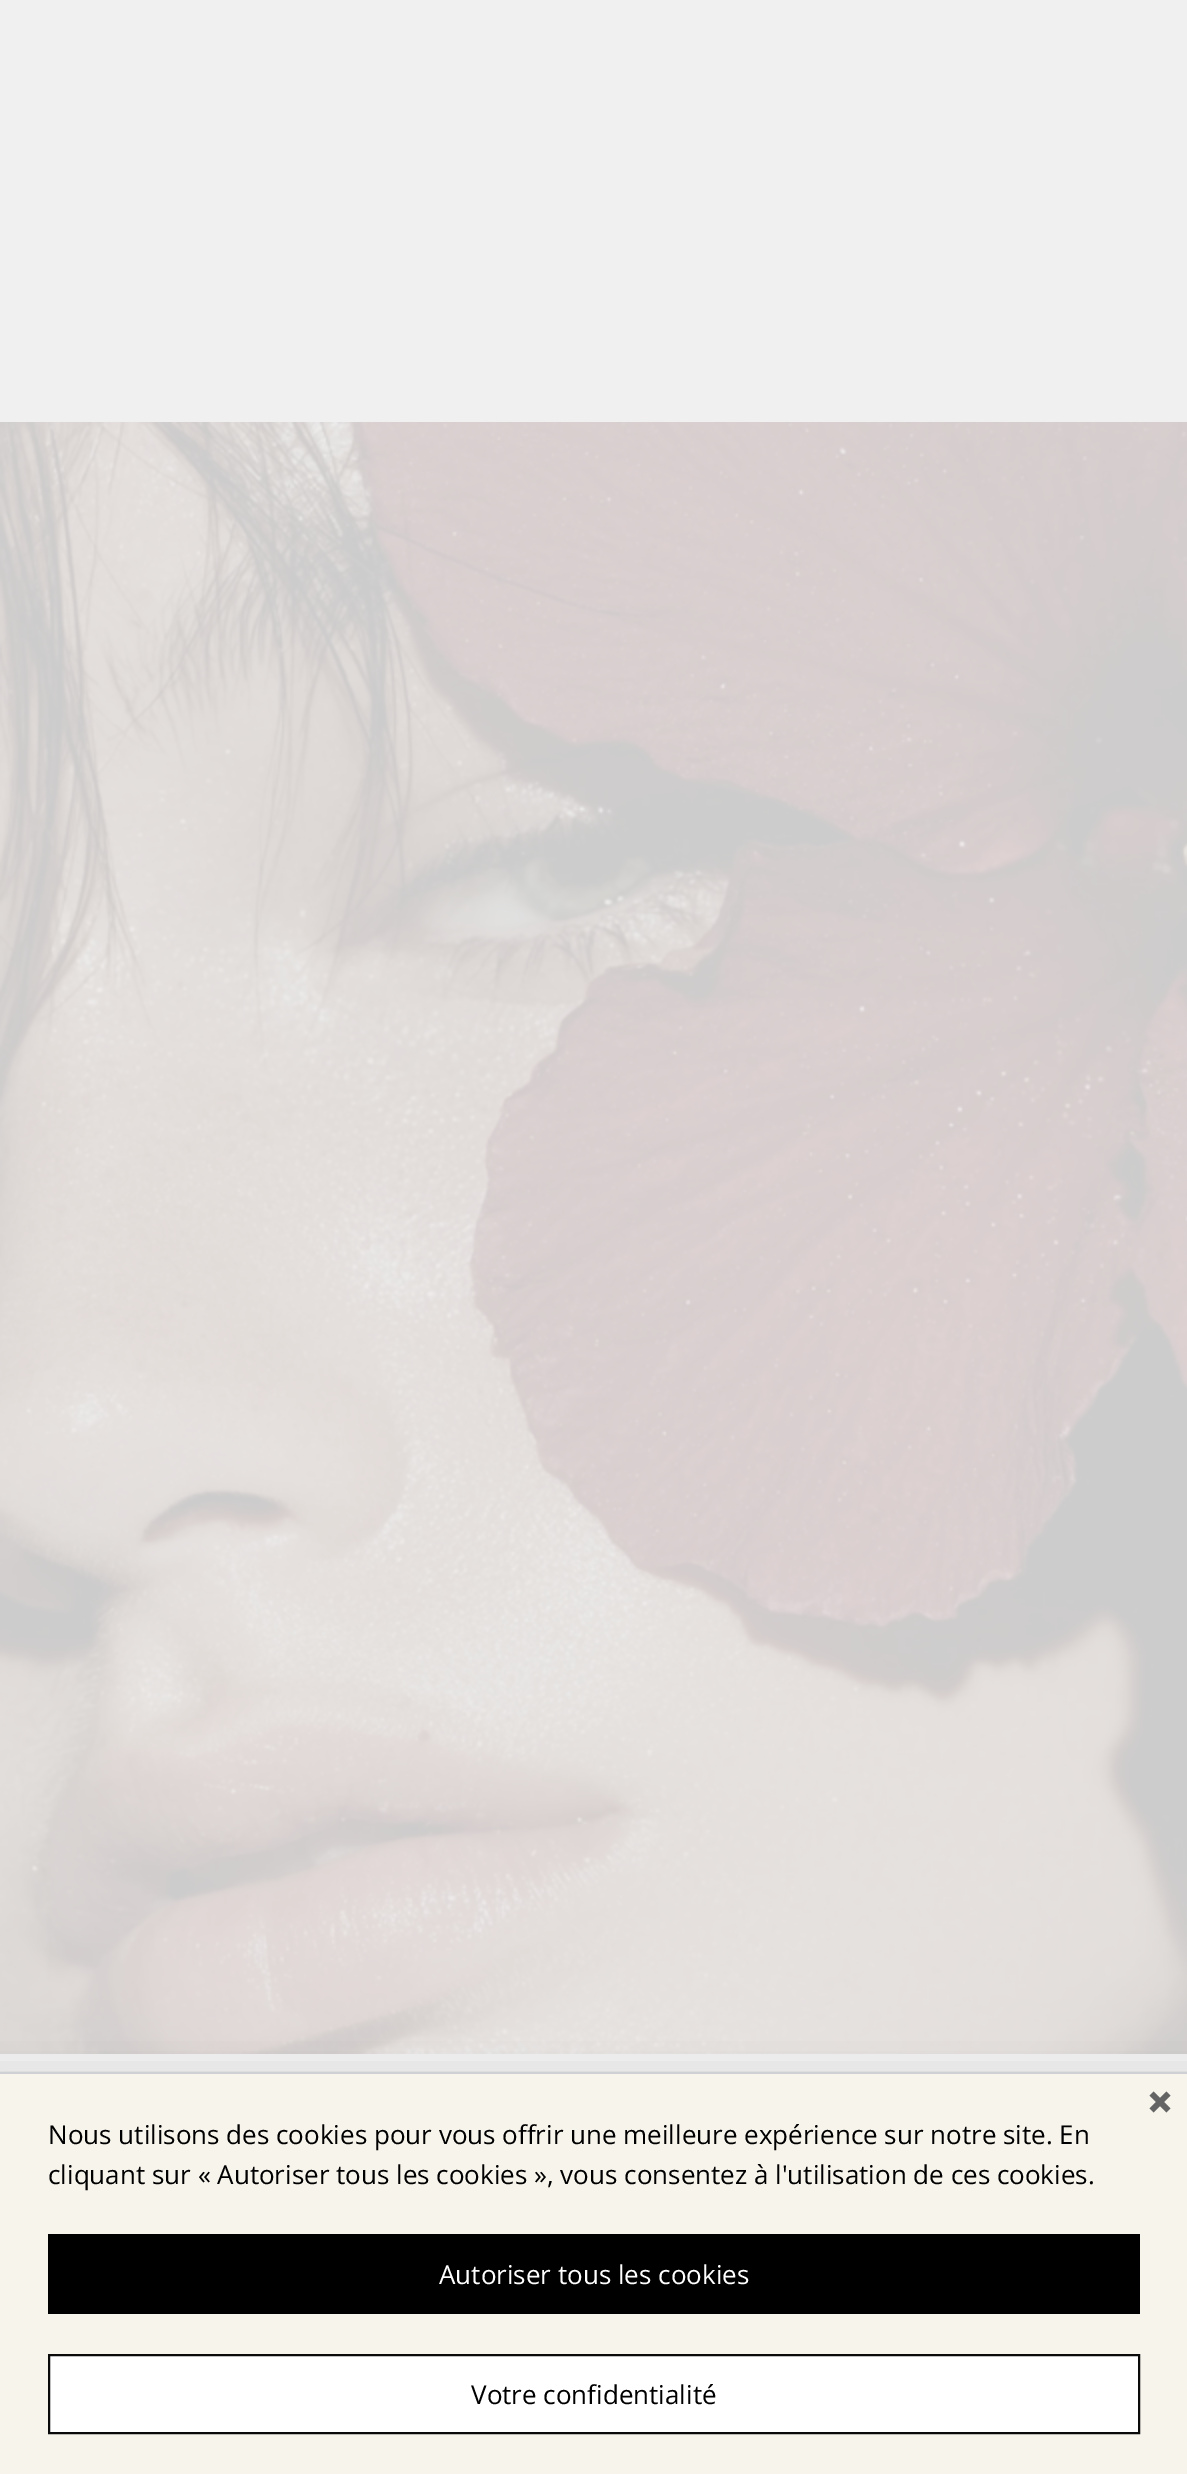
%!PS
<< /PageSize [1187 2474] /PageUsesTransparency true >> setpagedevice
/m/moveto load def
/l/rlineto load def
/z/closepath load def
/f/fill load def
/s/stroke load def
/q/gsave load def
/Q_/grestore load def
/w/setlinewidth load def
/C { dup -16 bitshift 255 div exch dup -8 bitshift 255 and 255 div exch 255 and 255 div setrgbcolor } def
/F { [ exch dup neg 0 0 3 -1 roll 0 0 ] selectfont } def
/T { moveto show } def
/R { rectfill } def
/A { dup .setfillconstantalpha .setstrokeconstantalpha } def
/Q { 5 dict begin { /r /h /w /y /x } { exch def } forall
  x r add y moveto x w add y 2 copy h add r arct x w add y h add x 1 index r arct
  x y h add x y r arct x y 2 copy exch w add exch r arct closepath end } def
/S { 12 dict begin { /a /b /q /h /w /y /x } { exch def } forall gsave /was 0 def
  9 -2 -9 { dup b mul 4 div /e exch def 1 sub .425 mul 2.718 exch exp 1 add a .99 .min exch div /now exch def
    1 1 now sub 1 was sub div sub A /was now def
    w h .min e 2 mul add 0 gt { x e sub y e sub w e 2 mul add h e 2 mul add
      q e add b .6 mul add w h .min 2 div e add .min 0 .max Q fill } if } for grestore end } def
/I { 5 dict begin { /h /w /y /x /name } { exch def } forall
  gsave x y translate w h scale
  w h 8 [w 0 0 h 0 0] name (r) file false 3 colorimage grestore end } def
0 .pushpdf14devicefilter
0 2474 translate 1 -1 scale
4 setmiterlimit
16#F0F0F0 C
0 0 1187 2474 R
(1.rgb) 0 422 1187 1632 I
16#242F42 C
-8 2086 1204 376 0 20 .31 S
0.08 A
2 w
-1 2073 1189 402 rectstroke
1 A
16#F7F4EB C
0 2074 1187 400 R
/OpenSans-Regular 26 F
16#000000 C
(Nous utilisons des cookies pour vous offrir une meilleure expérience sur notre site. En) 48 2144 T
(cliquant sur « Autoriser tous les cookies », vous consentez à l'utilisation de ces cookies.) 48 2184 T
(2.rgb) 1149 2091 22 22 I
48 2234 1092 80 R
16#FFFFFF C
(Autoriser tous les cookies) 439 2284 T
49 2355 m 1090 0 l 0 78 l -1090 0 l z q f Q_
16#0A0A0A C
s
16#000000 C
(Votre confidentialité) 471 2404 T
.poppdf14devicefilter showpage
